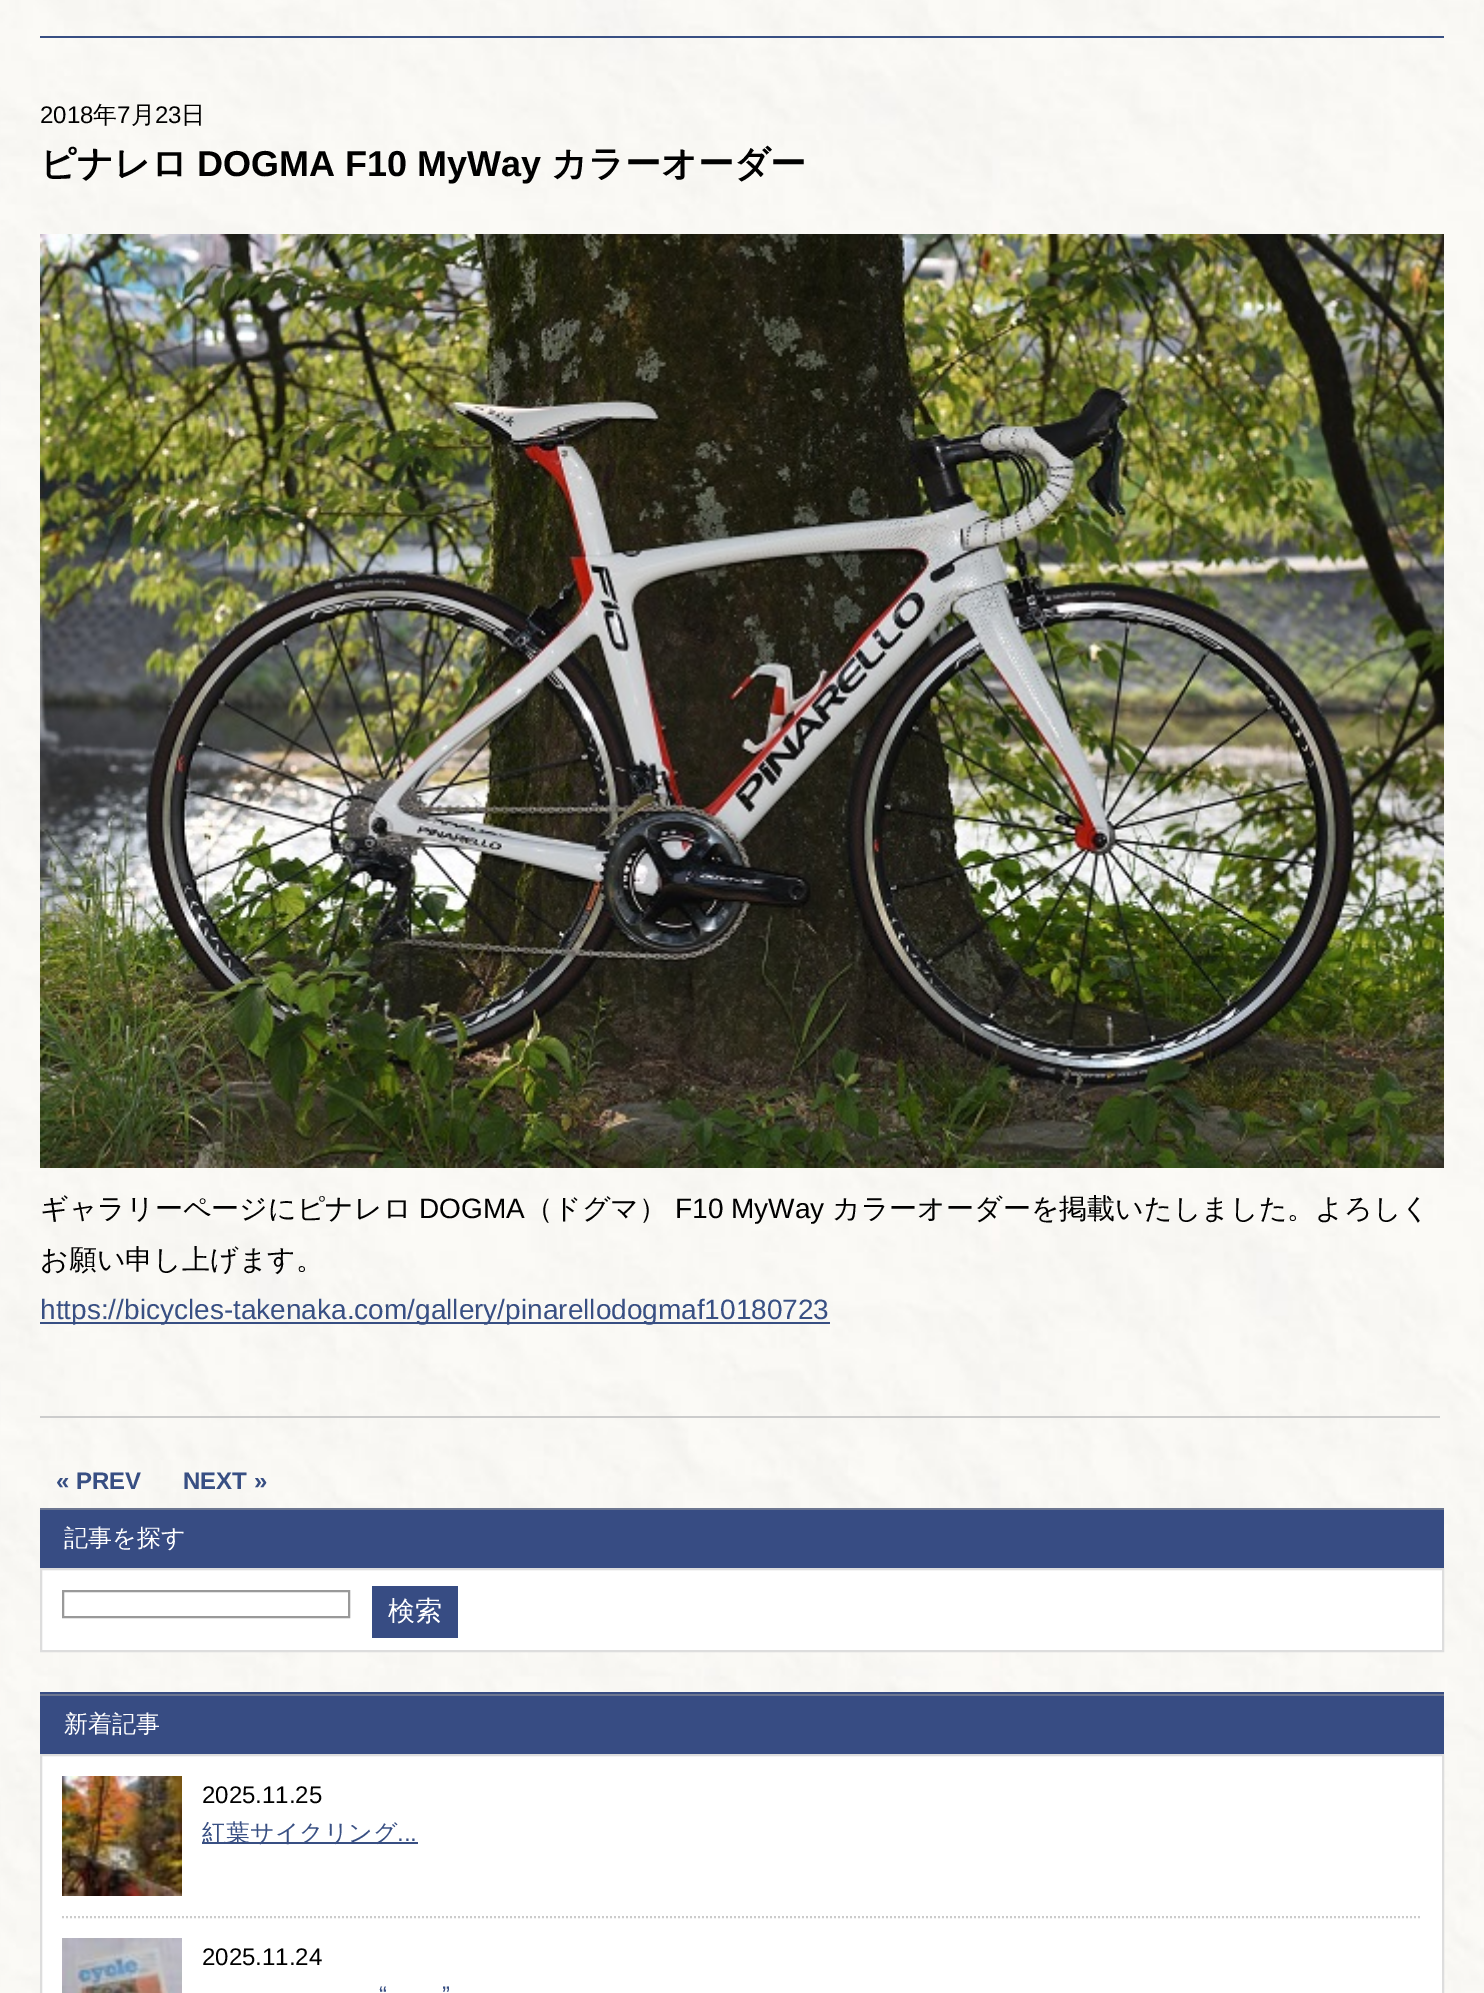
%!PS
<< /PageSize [1484 1993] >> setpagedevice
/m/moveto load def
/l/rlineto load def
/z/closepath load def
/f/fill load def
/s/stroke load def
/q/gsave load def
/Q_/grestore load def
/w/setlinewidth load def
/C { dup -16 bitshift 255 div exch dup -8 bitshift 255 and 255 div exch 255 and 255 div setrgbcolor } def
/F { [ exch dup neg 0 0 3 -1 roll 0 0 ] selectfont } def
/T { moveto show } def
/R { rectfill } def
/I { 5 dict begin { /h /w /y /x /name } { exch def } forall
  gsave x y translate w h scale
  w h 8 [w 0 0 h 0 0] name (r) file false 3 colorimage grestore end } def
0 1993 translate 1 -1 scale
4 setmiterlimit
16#FFFFFF C
0 0 1484 1993 R
(1.rgb) 0 0 1484 1993 I
16#384F83 C
40 36 1404 2 R
/LiberationSans-Regular 24 F
16#000000 C
(2018) 40 123 T
/WenQuanYiZenHei-Medium 24 F
(年) 93 123 T
/LiberationSans-Regular 24 F
(7) 117 123 T
/WenQuanYiZenHei-Medium 24 F
(月) 131 123 T
/LiberationSans-Regular 24 F
(23) 155 123 T
/WenQuanYiZenHei-Medium 24 F
(日) 181 123 T
/WenQuanYiZenHei-Bold 36 F
(ピナレロ) 40 176 T
/LiberationSans-Bold 36 F
(DOGMA F10 MyWay) 197 176 T
/WenQuanYiZenHei-Bold 36 F
(カラーオーダー) 551 176 T
(2.rgb) 40 234 1404 934 I
/WenQuanYiZenHei-Medium 28 F
(ギャラリーページにピナレロ) 40 1218 T
/LiberationSans-Regular 28 F
(DOGMA) 419 1218 T
/WenQuanYiZenHei-Medium 28 F
(（ドグマ）) 525 1218 T
/LiberationSans-Regular 28 F
(F10 MyWay) 675 1218 T
/WenQuanYiZenHei-Medium 28 F
(カラーオーダーを掲載いたしました。よろしく) 832 1218 T
(お願い申し上げます。) 40 1269 T
16#384F83 C
40 1322 790 2 R
/LiberationSans-Regular 28 F
(https://bicycles-takenaka.com/gallery/pinarellodogmaf10180723) 40 1319 T
16#CCCCCC C
40 1416 1400 2 R
/LiberationSans-Bold 24 F
16#384F83 C
(« PREV) 56 1489 T
(NEXT ») 183 1489 T
16#374C83 C
40 1510 1404 58 R
16#6D7791 C
40 1508 1404 2 R
/WenQuanYiZenHei-Medium 24 F
16#FFFFFF C
(記事を探す) 64 1546 T
41 1569 m 1402 0 l 0 82 l -1402 0 l z q f Q_
16#DDDDDD C
2 w
s
16#999999 C
63 1591 286 26 rectstroke
16#374C83 C
372 1586 86 52 R
/WenQuanYiZenHei-Medium 27 F
16#FFFFFF C
(検索) 388 1620 T
16#374C83 C
40 1692 1404 2 R
40 1696 1404 58 R
16#6D7791 C
40 1694 1404 2 R
/WenQuanYiZenHei-Medium 24 F
16#FFFFFF C
(新着記事) 64 1732 T
41 1755 m 1402 0 l 0 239 l -1402 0 l z q f Q_
16#DDDDDD C
s
16#CCCCCC C
[2 2] 0 setdash
62 1917 m 1360 0 l s
(3.rgb) 62 1776 120 120 I
/LiberationSans-Regular 24 F
16#000000 C
(2025.11.25) 202 1803 T
16#384F83 C
202 1842 216 2 R
/WenQuanYiZenHei-Medium 24 F
(紅葉サイクリング) 202 1841 T
/LiberationSans-Regular 24 F
(...) 397 1841 T
(4.rgb) 62 1938 120 55 I
16#000000 C
(2025.11.24) 202 1965 T
16#384F83 C
(“) 379 2003 T
(”) 442 2003 T
showpage
